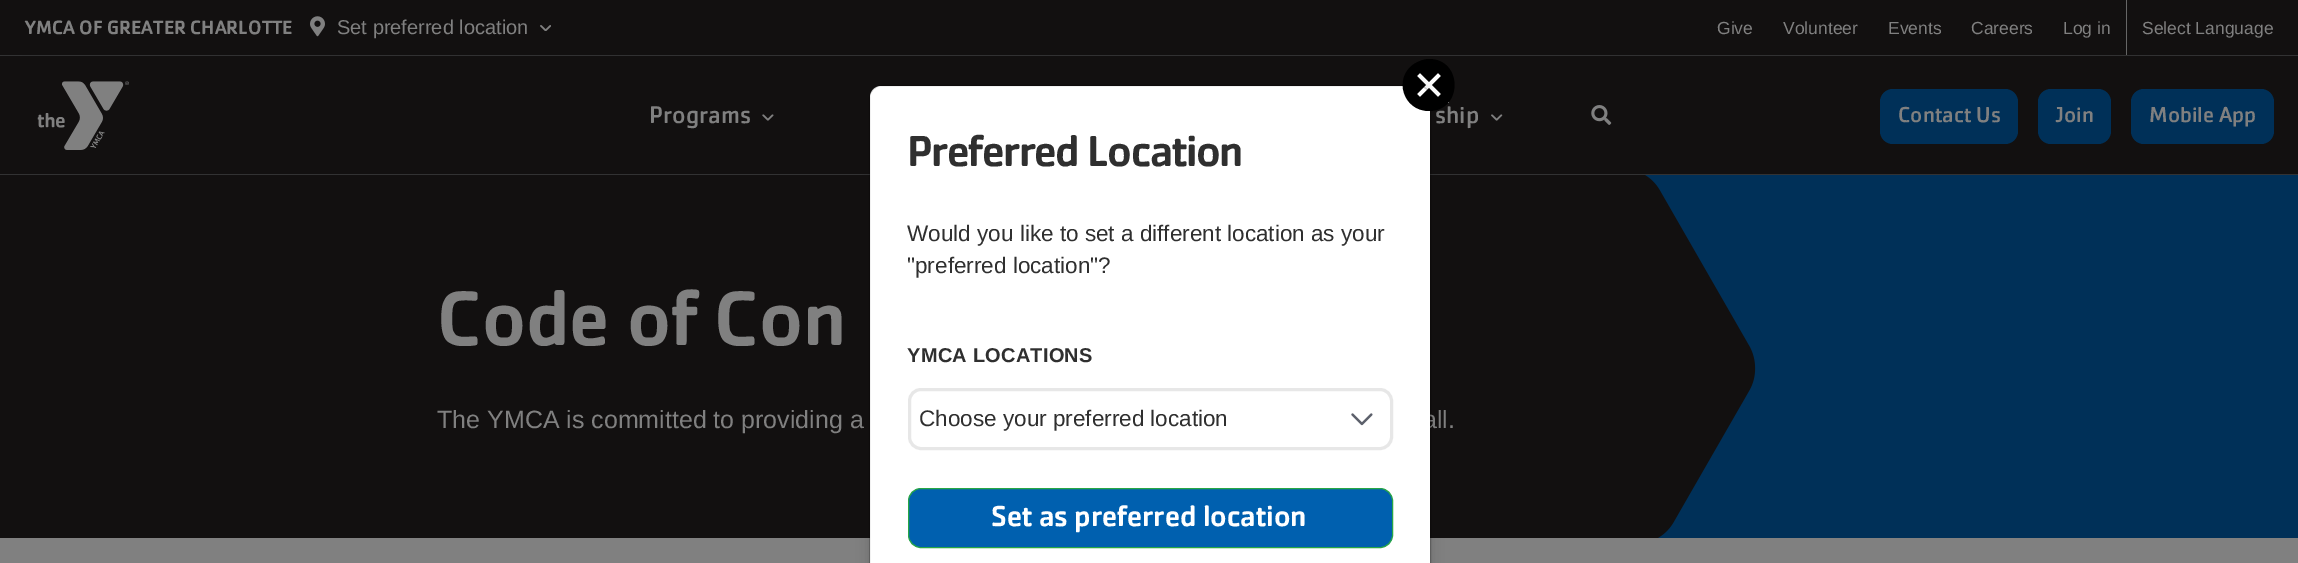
%!PS
<< /PageSize [2298 563] /PageUsesTransparency true >> setpagedevice
/m/moveto load def
/l/rlineto load def
/c/rcurveto load def
/z/closepath load def
/f/fill load def
/s/stroke load def
/q/gsave load def
/Q_/grestore load def
/w/setlinewidth load def
/C { dup -16 bitshift 255 div exch dup -8 bitshift 255 and 255 div exch 255 and 255 div setrgbcolor } def
/F { [ exch dup neg 0 0 3 -1 roll 0 0 ] selectfont } def
/T { moveto show } def
/R { rectfill } def
/A { dup .setfillconstantalpha .setstrokeconstantalpha } def
/Q { 5 dict begin { /r /h /w /y /x } { exch def } forall
  x r add y moveto x w add y 2 copy h add r arct x w add y h add x 1 index r arct
  x y h add x y r arct x y 2 copy exch w add exch r arct closepath end } def
/S { 12 dict begin { /a /b /q /h /w /y /x } { exch def } forall gsave /was 0 def
  9 -2 -9 { dup b mul 4 div /e exch def 1 sub .425 mul 2.718 exch exp 1 add a .99 .min exch div /now exch def
    1 1 now sub 1 was sub div sub A /was now def
    w h .min e 2 mul add 0 gt { x e sub y e sub w e 2 mul add h e 2 mul add
      q e add b .6 mul add w h .min 2 div e add .min 0 .max Q fill } if } for grestore end } def
/I { 5 dict begin { /h /w /y /x /name } { exch def } forall
  gsave x y translate w h scale
  w h 8 [w 0 0 h 0 0] name (r) file false 3 colorimage grestore end } def
0 .pushpdf14devicefilter
0 563 translate 1 -1 scale
4 setmiterlimit
16#808080 C
0 0 2298 563 R
16#121010 C
0 0 2298 174 R
16#323233 C
0 55 2298 1 R
/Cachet-Medium 20 F
16#808080 C
(YMCA OF GREATER CHARLOTTE) 25 34 T
(1.rgb) 310 16 15 21 I
/LiberationSans-Regular 20 F
(Set preferred location) 337 34 T
(2.rgb) 540 25 11 6 I
16#666666 C
2126 0 1 55 R
/LiberationSans-Regular 17.5 F
16#808080 C
(Give) 1717 34 T
(Volunteer) 1783 34 T
(Events) 1888 34 T
(Careers) 1971 34 T
(Log in) 2063 34 T
(Select Language) 2142 34 T
q
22 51 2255 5 rectclip
16#000000 C
10 76 2279 99 0 22 .16 S
Q_
16#323233 C
0 174 2298 1 R
(3.rgb) 37 81 92 69 I
/Cachet-Regular 25 F
16#808080 C
(Programs) 649 123 T
(4.rgb) 762 114 12 7 I
(ship) 1435 123 T
(5.rgb) 1491 114 12 7 I
(6.rgb) 1591 105 21 20 I
16#003058 C
1880 89 138 55 13 Q f
/Cachet-Regular 22.5 F
16#808080 C
(Contact Us) 1898 122 T
16#003058 C
2038 89 73 55 13 Q f
16#808080 C
(Join) 2055 122 T
16#003058 C
2131 89 143 55 13 Q f
16#808080 C
(Mobile App) 2149 122 T
16#003058 C
1733 175 565 363 R
16#121010 C
0 175 1609 363 R
/Cachet-Medium 80 F
16#808080 C
(Code of Con) 437 345 T
/LiberationSans-Regular 25 F
(The YMCA is committed to providing a) 437 428 T
(all.) 1423 428 T
(7.rgb) 1609 175 147 363 I
16#FFFFFF C
1417 68 32 35 R
16#000000 C
869 85 562 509 13 6 .15 S
16#FFFFFF C
881 86 m 538 0 l 6 0 11 5 11 11 c 0 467 l -560 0 l 0 -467 l 0 -6 5 -11 11 -11 c z f
0.2 A
16#000000 C
869.5 85.5 561 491 12.5 Q s
1 A
1420 97 m 9 -9 l 9 9 l 3 -3 l -9 -9 l 9 -9 l -3 -3 l -9 9 l -9 -9 l -3 3 l 9 9 l -9 9 l z 1429 111 m -26 0 -36 -33 -15 -47 c 5 -3 10 -5 15 -5 c 34 0 34 52 0 52 c z f
/Cachet-Medium 45 F
16#2F2F2F C
907 166 m -1.4 0 (Preferred Location) ashow
/LiberationSans-Regular 22.5 F
(Would you like to set a different location as your) 907 241 T
("preferred location"?) 907 273 T
/LiberationSans-Bold 20 F
907 362 m .25 0 (YMCA LOCATIONS) ashow
(8.rgb) 1351 413 22 13 I
16#E7E7E7 C
3 w
909.5 389.5 482 59 11.5 Q s
/LiberationSans-Regular 22.5 F
16#2F2F2F C
(Choose your preferred location) 919 426 T
16#0060AF C
908.5 488.5 484 59 12.5 Q q f Q_
16#28A745 C
1 w
s
/Cachet-Medium 30 F
16#FFFFFF C
(Set as preferred location) 991 526 T
.poppdf14devicefilter showpage
